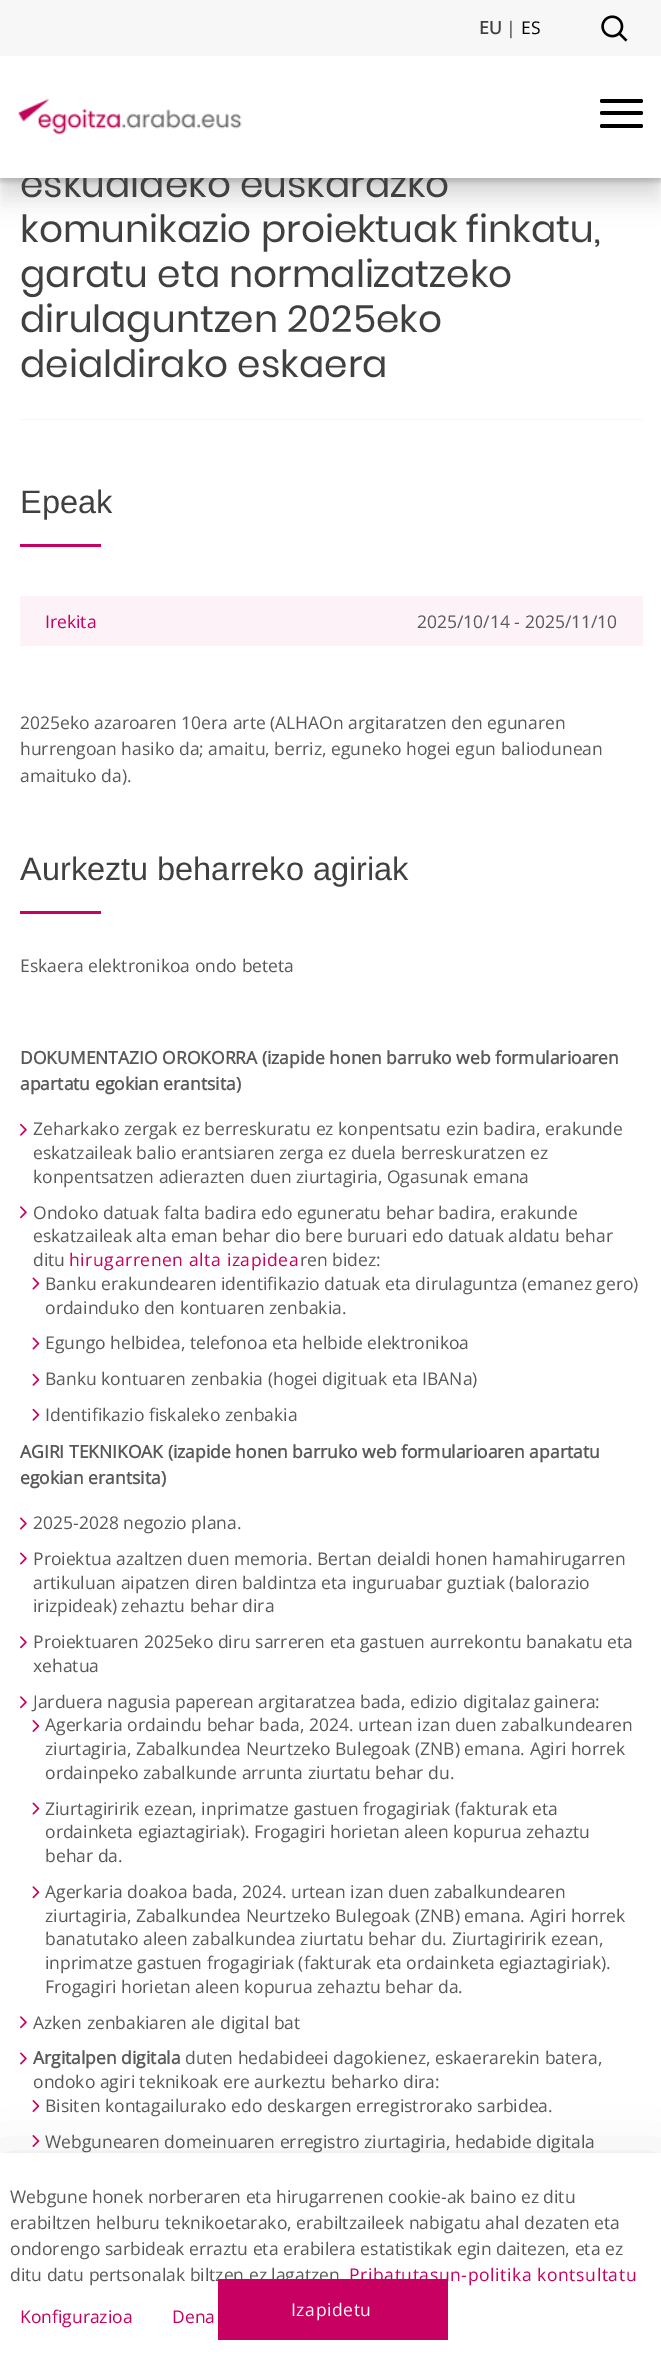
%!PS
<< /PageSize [661 2363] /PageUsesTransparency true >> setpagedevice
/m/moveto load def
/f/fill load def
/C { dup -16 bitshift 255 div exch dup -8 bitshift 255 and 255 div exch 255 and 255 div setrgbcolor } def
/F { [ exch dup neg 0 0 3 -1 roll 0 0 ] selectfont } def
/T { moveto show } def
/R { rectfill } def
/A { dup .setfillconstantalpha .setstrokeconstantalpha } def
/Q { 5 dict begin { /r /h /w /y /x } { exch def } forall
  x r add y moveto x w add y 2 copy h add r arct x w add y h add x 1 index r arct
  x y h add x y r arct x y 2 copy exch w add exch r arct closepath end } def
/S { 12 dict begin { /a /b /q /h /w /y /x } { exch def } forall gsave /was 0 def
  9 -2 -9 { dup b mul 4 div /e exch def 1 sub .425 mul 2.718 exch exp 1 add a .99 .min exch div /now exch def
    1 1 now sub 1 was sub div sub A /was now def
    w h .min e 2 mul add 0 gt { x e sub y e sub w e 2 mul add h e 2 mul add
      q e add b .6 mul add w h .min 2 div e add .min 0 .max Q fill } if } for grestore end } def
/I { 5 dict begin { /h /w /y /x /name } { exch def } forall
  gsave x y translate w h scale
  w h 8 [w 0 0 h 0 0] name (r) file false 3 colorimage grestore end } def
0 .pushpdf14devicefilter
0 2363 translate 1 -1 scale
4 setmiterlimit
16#FFFFFF C
0 0 661 2363 R
16#000000 C
0 3 661 177 0 2.5 .12 S
0 5 661 178 0 2 .09 S
0 28 661 177 0 10.5 .07 S
0 15 661 178 0 6 .06 S
/Poppins-Regular 37.5 F
16#404040 C
(eskualdeko euskarazko) 20 197 T
16#FFFFFF C
0 56 661 122 R
16#F7F7F7 C
0 0 661 56 R
/OpenSans-Bold 17.5 F
16#404040 C
(EU) 479 34 T
/OpenSans-Regular 17.5 F
(|) 506 34 T
16#000000 C
521 34 m .6 0 (ES) ashow
(1.rgb) 601 15 27 27 I
(2.rgb) 18 98 224 37 I
600 111 43 4 2 Q f
600 99 43 4 2 Q f
600 124 43 4 2 Q f
16#F7F7F7 C
20 419 623 1 R
/Poppins-Regular 37.5 F
16#404040 C
(komunikazio proiektuak finkatu,) 20 242 T
(garatu eta normalizatzeko) 20 287 T
(dirulaguntzen 2025eko) 20 332 T
(deialdirako eskaera) 20 377 T
/LiberationSans-Regular 32.5 F
(Epeak) 20 513 T
16#C70061 C
20 544 81 3 R
16#FCF2F7 C
20 596 623 50 R
/OpenSans-Regular 17.5 F
16#C70061 C
(Irekita) 45 628 T
16#595959 C
(2025/10/14 - 2025/11/10) 417 628 T
(2025eko azaroaren 10era arte \(ALHAOn argitaratzen den egunaren) 20 729 T
(hurrengoan hasiko da; amaitu, berriz, eguneko hogei egun baliodunean) 20 755 T
(amaituko da\).) 20 782 T
/LiberationSans-Regular 32.5 F
16#404040 C
(Aurkeztu beharreko agiriak) 20 880 T
16#C70061 C
20 911 81 3 R
/OpenSans-Regular 17.5 F
16#595959 C
(Eskaera elektronikoa ondo beteta) 20 972 T
/OpenSans-Bold 17.5 F
(DOKUMENTAZIO OROKORRA \(izapide honen barruko web formularioaren) 20 1064 T
(apartatu egokian erantsita\)) 20 1090 T
(3.rgb) 20 1123 7 13 I
/OpenSans-Regular 17.5 F
(Zeharkako zergak ez berreskuratu ez konpentsatu ezin badira, erakunde) 33 1135 T
(eskatzaileak balio erantsiaren zerga ez duela berreskuratzen ez) 33 1159 T
(konpentsatzen adierazten duen ziurtagiria, Ogasunak emana) 33 1183 T
(4.rgb) 20 1206 7 13 I
(Ondoko datuak falta badira edo eguneratu behar badira, erakunde) 33 1219 T
(eskatzaileak alta eman behar dio bere buruari edo datuak aldatu behar) 33 1242 T
(ditu) 33 1266 T
16#C70061 C
69 1266 m .6 0 (hirugarrenen alta izapidea) ashow
16#595959 C
(ren bidez:) 300 1266 T
(5.rgb) 32 1277 8 13 I
(Banku erakundearen identifikazio datuak eta dirulaguntza \(emanez gero\)) 45 1290 T
(ordainduko den kontuaren zenbakia.) 45 1314 T
(5.rgb) 32 1337 8 13 I
(Egungo helbidea, telefonoa eta helbide elektronikoa) 45 1349 T
(6.rgb) 32 1373 8 13 I
(Banku kontuaren zenbakia \(hogei digituak eta IBANa\)) 45 1385 T
(6.rgb) 32 1408 8 13 I
(Identifikazio fiskaleko zenbakia) 45 1421 T
/OpenSans-Bold 17.5 F
(AGIRI TEKNIKOAK \(izapide honen barruko web formularioaren apartatu) 20 1458 T
(egokian erantsita\)) 20 1484 T
(7.rgb) 20 1517 7 13 I
/OpenSans-Regular 17.5 F
(2025-2028 negozio plana.) 33 1529 T
(7.rgb) 20 1552 7 13 I
(Proiektua azaltzen duen memoria. Bertan deialdi honen hamahirugarren) 33 1565 T
(artikuluan aipatzen diren baldintza eta inguruabar guztiak \(balorazio) 33 1589 T
(irizpideak\) zehaztu behar dira) 33 1612 T
(4.rgb) 20 1636 7 13 I
(Proiektuaren 2025eko diru sarreren eta gastuen aurrekontu banakatu eta) 33 1648 T
(xehatua) 33 1672 T
(4.rgb) 20 1696 7 13 I
(Jarduera nagusia paperean argitaratzea bada, edizio digitalaz gainera:) 33 1708 T
(8.rgb) 32 1720 8 12 I
(Agerkaria ordaindu behar bada, 2024. urtean izan duen zabalkundearen) 45 1731 T
(ziurtagiria, Zabalkundea Neurtzeko Bulegoak \(ZNB\) emana. Agiri horrek) 45 1755 T
(ordainpeko zabalkunde arrunta ziurtatu behar du.) 45 1779 T
(5.rgb) 32 1802 8 13 I
(Ziurtagiririk ezean, inprimatze gastuen frogagiriak \(fakturak eta) 45 1815 T
(ordainketa egiaztagiriak\). Frogagiri horietan aleen kopurua zehaztu) 45 1838 T
(behar da.) 45 1862 T
(9.rgb) 32 1886 8 13 I
(Agerkaria doakoa bada, 2024. urtean izan duen zabalkundearen) 45 1898 T
(ziurtagiria, Zabalkundea Neurtzeko Bulegoak \(ZNB\) emana. Agiri horrek) 45 1922 T
(banatutako aleen zabalkundea ziurtatu behar du. Ziurtagiririk ezean,) 45 1945 T
(inprimatze gastuen frogagiriak \(fakturak eta ordainketa egiaztagiriak\).) 45 1969 T
(Frogagiri horietan aleen kopurua zehaztu behar da.) 45 1993 T
(4.rgb) 20 2016 7 13 I
(Azken zenbakiaren ale digital bat) 33 2029 T
(7.rgb) 20 2052 7 13 I
/OpenSans-Bold 17.5 F
(Argitalpen digitala) 33 2064 T
/OpenSans-Regular 17.5 F
(duten hedabideei dagokienez, eskaerarekin batera,) 185 2064 T
(ondoko agiri teknikoak ere aurkeztu beharko dira:) 33 2088 T
(8.rgb) 32 2100 8 12 I
(Bisiten kontagailurako edo deskargen erregistrorako sarbidea.) 45 2112 T
(8.rgb) 32 2135 8 12 I
(Webgunearen domeinuaren erregistro ziurtagiria, hedabide digitala) 45 2148 T
16#000000 C
0 2173 661 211 0 30 .18 S
16#FFFFFF C
0 2153 661 210 R
16#595959 C
(ditu datu pertsonalak biltzen ez lagatzen) 10 2281 T
16#C70061 C
218 2279 230 61 R
16#FFFFFF C
291 2316 m .6 0 (Izapidetu) ashow
16#595959 C
(Webgune honek norberaren eta hirugarrenen cookie-ak baino ez ditu) 10 2203 T
(erabiltzen helburu teknikoetarako, erabiltzaileek nabigatu ahal dezaten eta) 10 2229 T
(ondorengo sarbideak erraztu eta erabilera estatistikak egin daitezen, eta ez) 10 2255 T
16#C70061 C
349 2281 m .6 0 (Pribatutasun-politika kontsultatu) ashow
(Konfigurazioa) 20 2323 T
(Dena) 172 2323 T
.poppdf14devicefilter showpage
